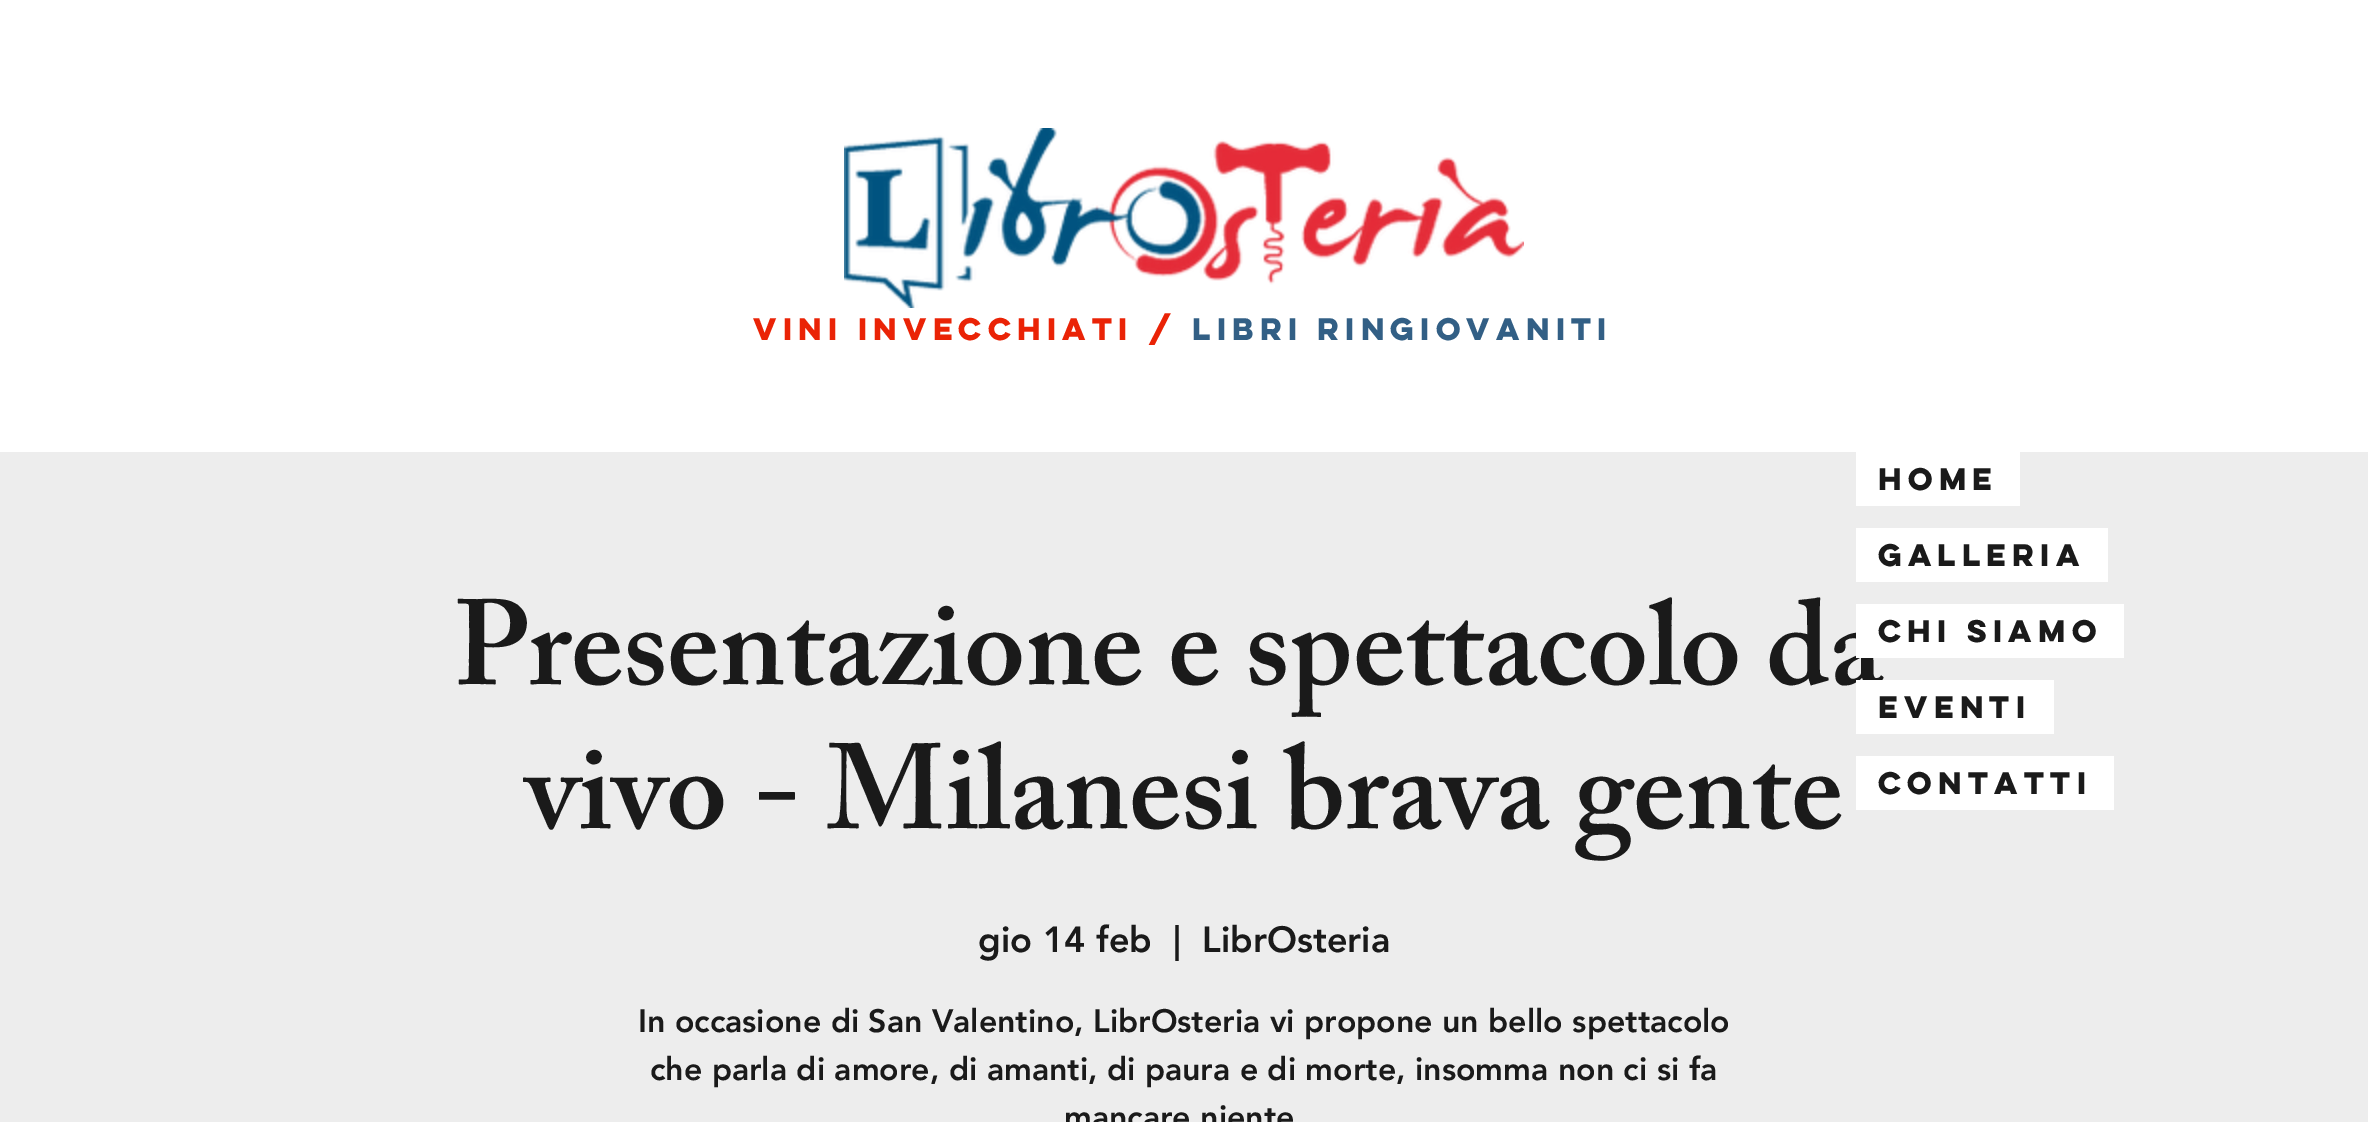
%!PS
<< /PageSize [2368 1122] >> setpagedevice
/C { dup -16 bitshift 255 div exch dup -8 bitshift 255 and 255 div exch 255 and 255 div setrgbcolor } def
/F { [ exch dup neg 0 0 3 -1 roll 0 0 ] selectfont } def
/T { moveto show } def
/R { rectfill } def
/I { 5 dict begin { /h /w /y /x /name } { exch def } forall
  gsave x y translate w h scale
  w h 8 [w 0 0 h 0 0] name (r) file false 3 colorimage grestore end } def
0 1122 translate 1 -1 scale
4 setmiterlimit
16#FFFFFF C
0 0 2368 1122 R
(1.rgb) 844 128 680 180 I
/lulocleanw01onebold-Bold 28 F
16#EA2306 C
(vini invecchiati /) 753 340 T
16#325F85 C
(libri ringiovaniti) 1192 340 T
16#EDEDED C
0 452 2368 670 R
/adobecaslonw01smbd-SemiBold 120 F
16#1A1A1A C
(Presentazione e spettacolo da) 454 684 T
(vivo - Milanesi brava gente) 525 828 T
/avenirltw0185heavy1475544-Black 36 F
(gio 14 feb) 978 952 T
(|) 1173 952 T
(LibrOsteria) 1202 952 T
/avenirltw0185heavy1475544-Black 32 F
(In occasione di San Valentino, LibrOsteria vi propone un bello spettacolo) 638 1032 T
(che parla di amore, di amanti, di paura e di morte, insomma non ci si fa) 650 1080 T
(mancare niente) 1064 1128 T
16#FFFFFF C
1856 452 164 54 R
/lulocleanw01onebold-Bold 28 F
16#1A1A1A C
(Home) 1878 490 T
16#FFFFFF C
1856 528 252 54 R
16#1A1A1A C
(Galleria) 1878 566 T
16#FFFFFF C
1856 604 268 54 R
16#1A1A1A C
(Chi siamo) 1878 642 T
16#FFFFFF C
1856 680 198 54 R
16#1A1A1A C
(Eventi) 1878 718 T
16#FFFFFF C
1856 756 258 54 R
16#1A1A1A C
(Contatti) 1878 794 T
showpage
